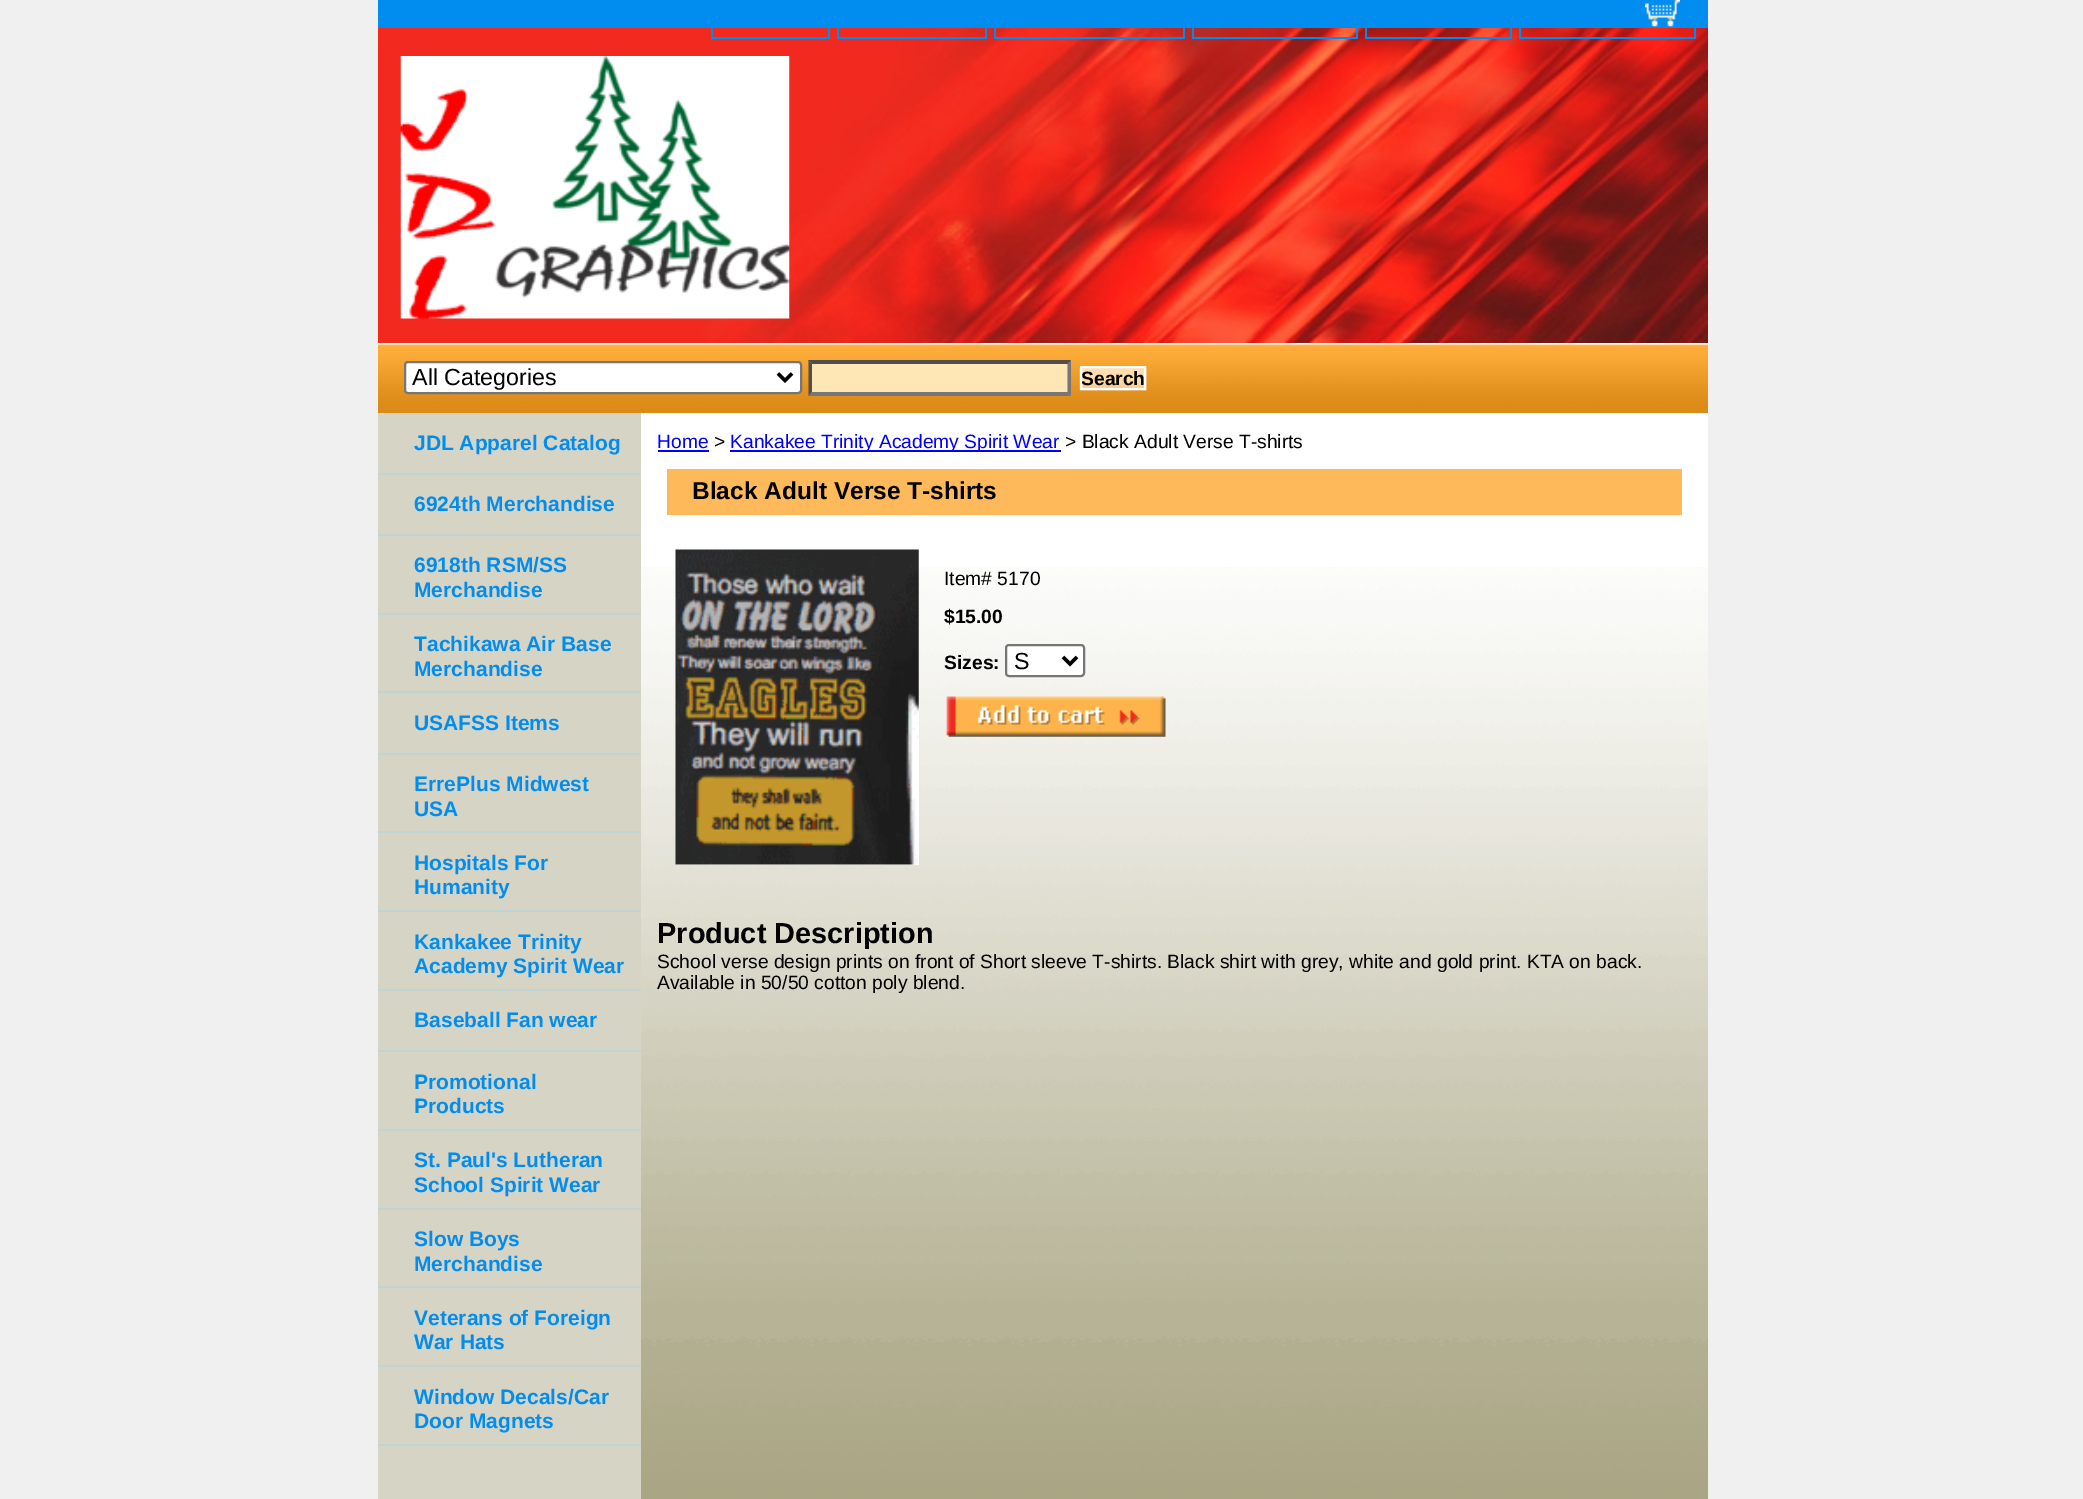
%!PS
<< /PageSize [2083 1499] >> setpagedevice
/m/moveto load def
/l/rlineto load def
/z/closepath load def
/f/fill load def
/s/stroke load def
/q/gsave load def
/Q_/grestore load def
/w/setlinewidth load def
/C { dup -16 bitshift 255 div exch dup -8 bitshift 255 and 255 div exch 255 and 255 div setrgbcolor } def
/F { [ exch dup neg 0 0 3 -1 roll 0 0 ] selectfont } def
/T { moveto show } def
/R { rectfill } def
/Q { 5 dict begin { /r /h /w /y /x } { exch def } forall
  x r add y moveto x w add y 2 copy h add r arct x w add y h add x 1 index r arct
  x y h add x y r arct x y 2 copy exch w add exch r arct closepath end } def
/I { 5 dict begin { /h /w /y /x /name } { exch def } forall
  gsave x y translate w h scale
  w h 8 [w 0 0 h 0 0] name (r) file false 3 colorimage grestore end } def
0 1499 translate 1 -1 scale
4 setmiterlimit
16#F0F0F0 C
0 0 2083 1499 R
16#008DEF C
378 0 1330 28 R
(1.rgb) 378 28 1330 315 I
828 28 2 11 R
711 37 119 2 R
711 28 2 11 R
985 28 2 11 R
837 37 150 2 R
837 28 2 11 R
1183 28 2 11 R
994 37 191 2 R
994 28 2 11 R
1356 28 2 11 R
1192 37 166 2 R
1192 28 2 11 R
1510 28 2 11 R
1365 37 147 2 R
1365 28 2 11 R
1694 28 2 11 R
1519 37 177 2 R
1519 28 2 11 R
(2.rgb) 1645 0 35 27 I
(3.rgb) 400 56 390 263 I
(4.rgb) 378 343 1330 70 I
16#FFFFFF C
405 362 396 31 3 Q q f Q_
16#767676 C
2 w
s
16#000000 C
3.5 w
778 373.5 m 7 7 l 7 -7 l s
/LiberationSans-Regular 23.25 F
(All Categories) 412 385 T
16#FFE7B5 C
809 361 262 35 R
16#4F4F4F C
808 360 m 263 0 l -3 4 l -256 0 l z f
16#767676 C
1071 360.5 m 0 35 l -3.5 -3.5 l 0 -28 l z f
1071 396 m -263 0 l 4 -4 l 256 0 l z f
16#4F4F4F C
808.5 395.5 m 0 -35 l 3.5 3.5 l 0 28 l z f
(5.rgb) 1079 367 68 24 I
16#FFFFFF C
2 w
1081 367 64 22 rectstroke
q
1082 368 63 21 rectclip
/LiberationSans-Bold 19.25 F
16#000000 C
(Search) 1081 385 T
Q_
641 413 1067 154 R
(6.rgb) 641 567 1067 932 I
16#D6D5C5 C
378 413 263 1086 R
16#C2D3D3 C
378 473 263 2 R
/LiberationSans-Bold 21 F
16#008DEF C
(JDL Apparel Catalog) 414 450 T
16#C2D3D3 C
378 534 263 2 R
16#008DEF C
(6924th Merchandise) 414 511 T
16#C2D3D3 C
378 613 263 2 R
16#008DEF C
(6918th RSM/SS) 414 572 T
(Merchandise) 414 597 T
16#C2D3D3 C
378 691 263 2 R
16#008DEF C
(Tachikawa Air Base) 414 651 T
(Merchandise) 414 676 T
16#C2D3D3 C
378 753 263 2 R
16#008DEF C
(USAFSS Items) 414 730 T
16#C2D3D3 C
378 831 263 2 R
16#008DEF C
(ErrePlus Midwest) 414 791 T
(USA) 414 816 T
16#C2D3D3 C
378 910 263 2 R
16#008DEF C
(Hospitals For) 414 870 T
(Humanity) 414 894 T
16#C2D3D3 C
378 989 263 2 R
16#008DEF C
(Kankakee Trinity) 414 949 T
(Academy Spirit Wear) 414 973 T
16#C2D3D3 C
378 1050 263 2 R
16#008DEF C
(Baseball Fan wear) 414 1027 T
16#C2D3D3 C
378 1129 263 2 R
16#008DEF C
(Promotional) 414 1089 T
(Products) 414 1113 T
16#C2D3D3 C
378 1208 263 2 R
16#008DEF C
(St. Paul's Lutheran) 414 1167 T
(School Spirit Wear) 414 1192 T
16#C2D3D3 C
378 1286 263 2 R
16#008DEF C
(Slow Boys) 414 1246 T
(Merchandise) 414 1271 T
16#C2D3D3 C
378 1365 263 2 R
16#008DEF C
(Veterans of Foreign) 414 1325 T
(War Hats) 414 1349 T
16#C2D3D3 C
378 1444 263 2 R
16#008DEF C
(Window Decals/Car) 414 1404 T
(Door Magnets) 414 1428 T
/LiberationSans-Regular 19.25 F
16#0000FF C
(Home) 657 448 T
658 450 51 2 R
16#000000 C
(>) 714 448 T
16#0000FF C
730 450 331 2 R
(Kankakee Trinity Academy Spirit Wear) 730 448 T
16#000000 C
(> Black Adult Verse T-shirts) 1065 448 T
16#FEBA5A C
667 469 1015 46 R
/LiberationSans-Bold 24.5 F
16#000000 C
(Black Adult Verse T-shirts) 692 499 T
16#FFFFFF C
676 567 243 298 R
(7.rgb) 675 549 244 316 I
/LiberationSans-Regular 19.25 F
16#000000 C
(Item# 5170) 944 585 T
/LiberationSans-Bold 19.25 F
($15.00) 944 623 T
(Sizes:) 944 669 T
16#FFFFFF C
1006 645 78 31 3 Q q f Q_
16#767676 C
s
16#000000 C
3.5 w
1063 657 m 7 7 l 7 -7 l s
/LiberationSans-Regular 23.25 F
(S) 1014 669 T
(8.rgb) 946 696 220 41 I
/LiberationSans-Bold 28.9 F
(Product Description) 657 943 T
/LiberationSans-Regular 19.25 F
(School verse design prints on front of Short sleeve T-shirts. Black shirt with grey, white and gold print. KTA on back.) 657 968 T
(Available in 50/50 cotton poly blend.) 657 989 T
showpage
